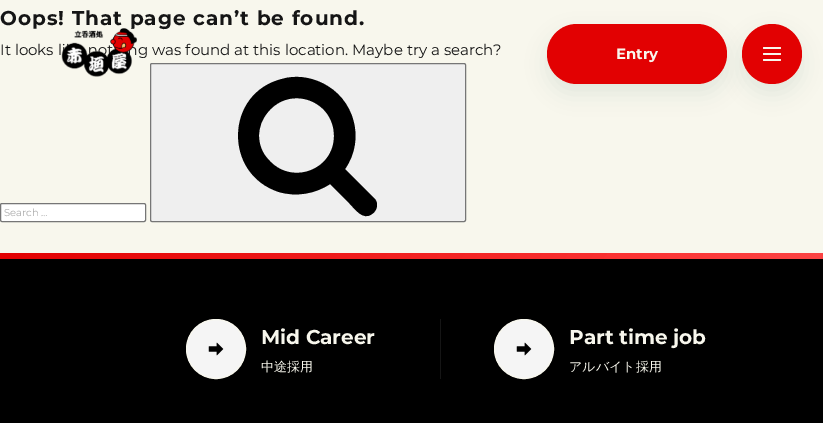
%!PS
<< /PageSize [823 423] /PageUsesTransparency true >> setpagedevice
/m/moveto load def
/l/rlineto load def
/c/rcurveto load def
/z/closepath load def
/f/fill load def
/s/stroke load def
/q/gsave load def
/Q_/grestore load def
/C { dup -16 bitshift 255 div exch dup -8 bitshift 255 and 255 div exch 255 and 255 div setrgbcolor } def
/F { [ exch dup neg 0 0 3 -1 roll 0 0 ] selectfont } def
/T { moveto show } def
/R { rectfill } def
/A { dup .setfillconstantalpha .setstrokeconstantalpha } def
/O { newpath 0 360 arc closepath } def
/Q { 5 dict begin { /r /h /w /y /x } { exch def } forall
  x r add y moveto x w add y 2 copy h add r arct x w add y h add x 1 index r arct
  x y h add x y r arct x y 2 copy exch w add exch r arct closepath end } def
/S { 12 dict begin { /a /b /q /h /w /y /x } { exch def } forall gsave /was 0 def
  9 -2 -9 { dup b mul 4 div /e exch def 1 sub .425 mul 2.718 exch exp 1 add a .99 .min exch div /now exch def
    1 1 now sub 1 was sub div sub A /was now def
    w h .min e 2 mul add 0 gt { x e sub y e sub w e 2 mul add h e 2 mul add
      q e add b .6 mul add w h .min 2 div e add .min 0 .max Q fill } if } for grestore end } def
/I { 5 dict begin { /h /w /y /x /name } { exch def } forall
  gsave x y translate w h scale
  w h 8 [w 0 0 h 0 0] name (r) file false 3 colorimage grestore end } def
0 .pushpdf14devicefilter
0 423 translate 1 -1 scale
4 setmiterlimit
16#F8F7ED C
0 0 823 423 R
/Montserrat-Bold 20 F
16#151515 C
0 25 m 1 0 (Oops! That page can’t be found.) ashow
/Montserrat-Regular 15 F
(It looks l) 0 55 T
(g was found at this location. Maybe try a search?) 138 55 T
16#FFFFFF C
.5 203.5 145 18 1.5 Q q f Q_
16#767676 C
s
/Montserrat-Regular 10 F
16#AAAAAA C
(Search …) 4 216 T
16#EFEFEF C
150.5 63.5 315 158 1.5 Q q f Q_
16#767676 C
s
16#000000 C
334 136 m 0 -36 -44 -51 -66 -24 c -6 7 -9 15 -9 24 c 0 8 3 17 9 23 c 22 27 66 12 66 -23 c z 377 205 m 0 4 -2 7 -5 9 c -9 7 -17 -5 -23 -11 c -19 -19 l -15 10 -34 13 -51 8 c -56 -18 -54 -99 3 -113 c 13 -4 28 -2 40 4 c 32 15 44 56 23 86 c 29 29 l 2 2 3 4 3 7 c z f
0 259 823 164 R
q 0 253 m 823 0 l 0 6 l -823 0 l z clip newpath
<< /ShadingType 2 /ColorSpace /DeviceRGB /Coords [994 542 206 -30] /Extend [true true] /Function << /FunctionType 3 /Domain [0 1] /Functions [<< /FunctionType 2 /Domain [0 1] /C0 [.98 .392 .392] /C1 [.98 .196 .196] /N 1 >> << /FunctionType 2 /Domain [0 1] /C0 [.98 .196 .196] /C1 [.886 .004 .008] /N 1 >>] /Bounds [.49] /Encode [0 1 0 1] >> >> shfill Q_
16#F5F5F5 C
216 349 29.5 O q f Q_
16#F8F7ED C
s
(1.rgb) 208 342 16 14 I
/Montserrat-Bold 20 F
(Mid Career) 261 344 T
/WenQuanYiZenHei-Medium 13 F
(中途採用) 261 371 T
16#151515 C
440 319 1 60 R
16#F5F5F5 C
524 349 29.5 O q f Q_
16#F8F7ED C
s
(1.rgb) 516 342 16 14 I
/Montserrat-Bold 20 F
(Part time job) 569 344 T
/WenQuanYiZenHei-Medium 13 F
(アルバイト採用) 569 371 T
(2.rgb) 61 28 76 49 I
16#325957 C
547 34 180 60 30 10 .1 S
16#E20102 C
547 24 180 60 30 Q f
/Montserrat-Bold 15 F
16#F8F7ED C
(Entry) 616 59 T
16#325957 C
742 34 60 60 30 10 .1 S
16#E20102 C
772 54 30 O f
16#F8F7ED C
763 47 18 2 1 Q f
763 53 18 2 1 Q f
763 59 18 2 1 Q f
.poppdf14devicefilter showpage
